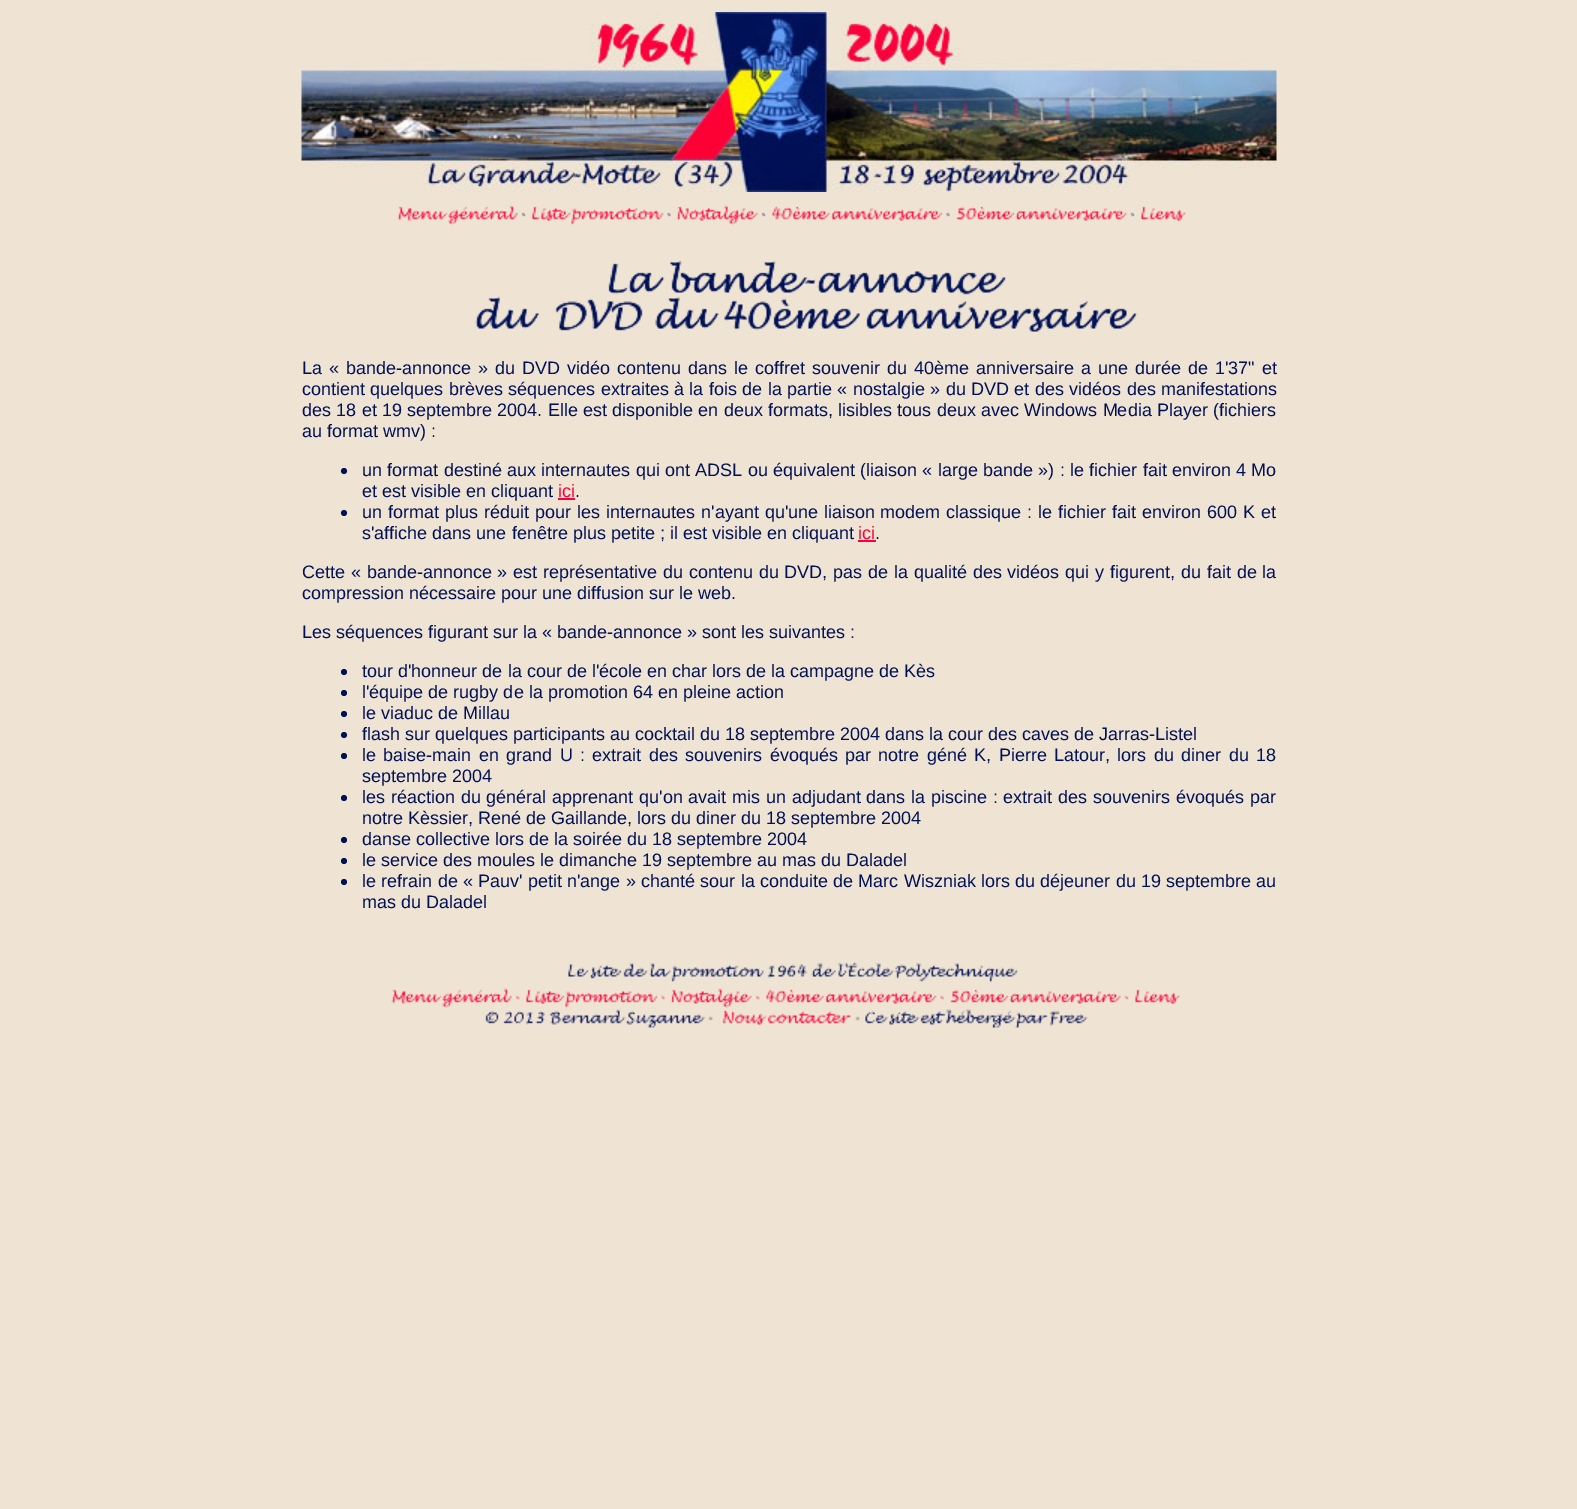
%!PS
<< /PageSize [1577 1509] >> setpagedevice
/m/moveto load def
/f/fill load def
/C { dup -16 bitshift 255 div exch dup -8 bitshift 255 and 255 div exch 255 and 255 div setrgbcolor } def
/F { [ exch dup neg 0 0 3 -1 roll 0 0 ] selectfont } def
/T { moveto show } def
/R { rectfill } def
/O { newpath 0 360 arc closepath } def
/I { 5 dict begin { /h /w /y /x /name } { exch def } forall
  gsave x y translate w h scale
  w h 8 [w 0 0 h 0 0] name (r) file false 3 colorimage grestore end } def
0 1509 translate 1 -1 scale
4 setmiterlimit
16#EFE4D3 C
0 0 1577 1509 R
(1.rgb) 301 12 976 180 I
(2.rgb) 397 205 789 21 I
(3.rgb) 475 260 663 72 I
/LiberationSans-Regular 18 F
16#011156 C
302 374 m 2 0 32 (La « bande-annonce » du DVD vidéo) widthshow
617 374 m 2 0 32 (contenu dans le coffret souvenir du 40ème anniversaire a une durée) widthshow
1188 374 m 2 0 32 (de 1'37" et) widthshow
302 395 m .4 0 32 (contient quelques brèves séquences extraites) widthshow
674 395 m .4 0 32 (à la fois de la partie « nostalgie » du DVD) widthshow
1014 395 m .5 0 32 (et des vidéos des manifestations) widthshow
302 416 m .25 0 32 (des 18 et 19 septembre 2004. Elle est disponible en deux formats, lisibles tous deux avec Windows Media) widthshow
(Player \(fichiers) 1157 416 T
(au format wmv\) :) 302 437 T
344 471 3 O f
362 476 m .3 0 32 (un format destiné aux internautes qui ont ADSL ou équivalent \(liaison « large bande »\) : le fichier fait) widthshow
(environ 4 Mo) 1172 476 T
(et est visible en cliquant) 362 497 T
16#FD003B C
(ici) 558 497 T
558 498 17 2 R
16#011156 C
(.) 575 497 T
344 513 3 O f
362 518 m 1 0 32 (un format plus réduit pour les internautes n'ayant qu'une liaison) widthshow
880 518 m 1 0 32 (modem classique : le fichier fait environ 600 K et) widthshow
(s'affiche dans une fenêtre plus petite ; il est visible en cliquant) 362 539 T
16#FD003B C
(ici) 858 539 T
858 540 18 2 R
16#011156 C
(.) 875 539 T
302 578 m .8 0 32 (Cette « bande-annonce » est représentative) widthshow
663 578 m .8 0 32 (du contenu du DVD, pas de la qualité des vidéos qui y figurent,) widthshow
1181 578 m .8 0 32 (du fait de la) widthshow
(compression nécessaire pour une diffusion sur le web.) 302 599 T
(Les séquences figurant sur la « bande-annonce » sont les suivantes :) 302 638 T
344 672 3 O f
(tour d'honneur de la cour de l'école en char lors de la campagne de Kès) 362 677 T
344 693 3 O f
(l'équipe de rugby de la promotion 64 en pleine action) 362 698 T
344 714 3 O f
(le viaduc de Millau) 362 719 T
344 735 3 O f
(flash sur quelques participants au cocktail du 18 septembre 2004 dans la cour des caves de Jarras-Listel) 362 740 T
344 756 3 O f
362 761 m 2.4 0 32 (le baise-main en grand U : extrait des souvenirs évoqués) widthshow
845 761 m 2.4 0 32 (par notre géné K, Pierre Latour, lors du diner du 18) widthshow
(septembre 2004) 362 782 T
344 798 3 O f
362 803 m .8 0 32 (les réaction du général apprenant qu'on avait) widthshow
732 803 m .75 0 32 (mis un adjudant dans la piscine : extrait des souvenirs évoqués) widthshow
(par) 1250 803 T
(notre Kèssier, René de Gaillande, lors du diner du 18 septembre 2004) 362 824 T
344 840 3 O f
(danse collective lors de la soirée du 18 septembre 2004) 362 845 T
344 861 3 O f
(le service des moules le dimanche 19 septembre au mas du Daladel) 362 866 T
344 882 3 O f
362 887 m .25 0 32 (le refrain de « Pauv' petit n'ange » chanté sour la conduite de Marc Wiszniak lors du déjeuner du 19 septembre) widthshow
(au) 1256 887 T
(mas du Daladel) 362 908 T
(4.rgb) 568 962 450 21 I
(5.rgb) 391 982 789 46 I
showpage
